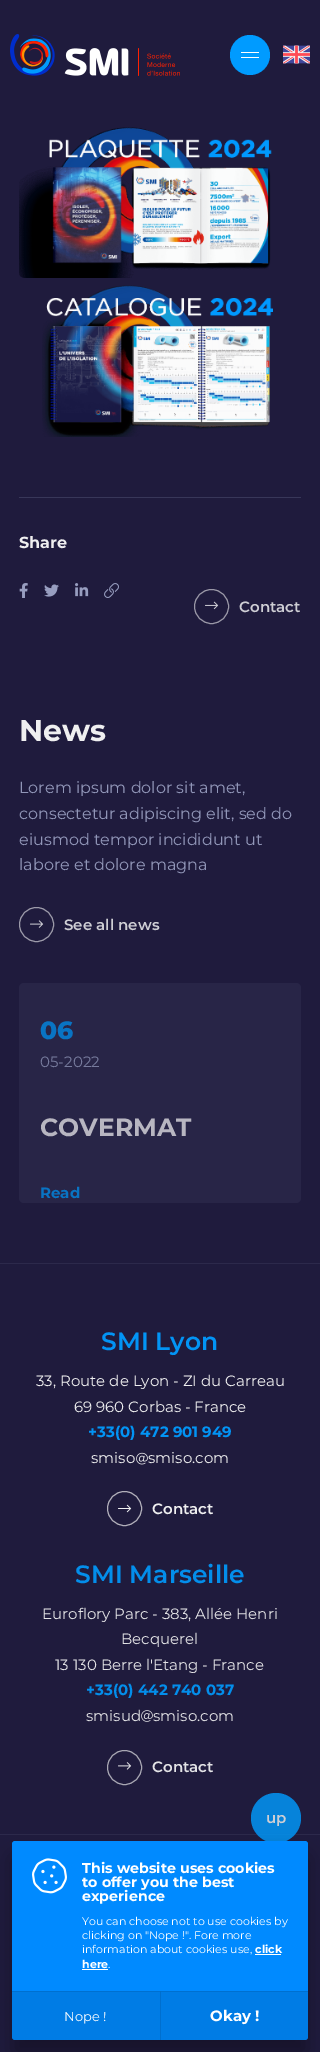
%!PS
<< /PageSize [320 2052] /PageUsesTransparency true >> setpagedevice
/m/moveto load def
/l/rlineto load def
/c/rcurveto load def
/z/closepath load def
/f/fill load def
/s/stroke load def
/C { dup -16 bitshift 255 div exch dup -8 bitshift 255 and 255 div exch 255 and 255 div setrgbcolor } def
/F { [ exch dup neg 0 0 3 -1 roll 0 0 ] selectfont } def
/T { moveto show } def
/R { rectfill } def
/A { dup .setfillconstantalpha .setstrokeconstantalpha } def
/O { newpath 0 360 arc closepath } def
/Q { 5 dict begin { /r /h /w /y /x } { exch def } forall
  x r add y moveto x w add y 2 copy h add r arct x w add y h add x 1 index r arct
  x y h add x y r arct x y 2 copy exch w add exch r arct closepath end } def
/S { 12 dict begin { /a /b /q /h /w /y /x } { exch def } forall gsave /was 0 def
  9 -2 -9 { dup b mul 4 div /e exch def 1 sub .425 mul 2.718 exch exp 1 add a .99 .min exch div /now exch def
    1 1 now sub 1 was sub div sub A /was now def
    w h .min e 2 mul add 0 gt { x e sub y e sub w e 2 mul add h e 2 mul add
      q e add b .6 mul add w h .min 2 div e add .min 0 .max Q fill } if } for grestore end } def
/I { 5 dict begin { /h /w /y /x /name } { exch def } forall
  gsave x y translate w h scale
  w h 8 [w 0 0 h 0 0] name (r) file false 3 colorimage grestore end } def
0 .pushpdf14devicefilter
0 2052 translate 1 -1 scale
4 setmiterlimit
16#1F1B3D C
0 0 320 2052 R
(1.rgb) 10 34 170 42 I
16#009BFF C
250 55 20 O f
16#FFFFFF C
241 52 18 1 R
241 57 18 1 R
(2.rgb) 283 45 27 19 I
(3.rgb) 19 127 253 151 I
(4.rgb) 42 285 231 152 I
16#383759 C
19 497 282 1 R
/Montserrat-Bold 16 F
16#EFEFF0 C
(Share) 19 548 T
(5.rgb) 19 583 9 15 I
(6.rgb) 44 584 15 13 I
(7.rgb) 75 583 14 14 I
(8.rgb) 104 583 15 15 I
16#9A98A7 C
211.5 606.5 17 O s
(9.rgb) 205 601 14 9 I
/Montserrat-SemiBold 15 F
16#CECED4 C
(Contact) 239 612 T
/Montserrat-Bold 30 F
16#EFEFF0 C
(News) 19 741 T
/Montserrat-Regular 16 F
16#9196B8 C
(Lorem ipsum dolor sit amet,) 19 793 T
(consectetur adipiscing elit, sed do) 19 819 T
(eiusmod tempor incididunt ut) 19 845 T
(labore et dolore magna) 19 870 T
16#9C9AA9 C
36.5 924.5 17 O s
(10.rgb) 30 920 14 8 I
/Montserrat-SemiBold 15 F
16#CECED4 C
(See all news) 64 930 T
16#282547 C
19 983 282 220 5 Q f
/Montserrat-ExtraBold 25 F
16#0974C4 C
(06) 40 1039 T
/Montserrat-Regular 15 F
16#777B9D C
(05-2022) 40 1067 T
/Montserrat-Bold 25 F
16#B8B6C1 C
(COVERMAT) 40 1136 T
/Montserrat-Bold 15 F
16#0974C4 C
(Read) 40 1198 T
16#2C294B C
0 1263 320 1 R
/Montserrat-SemiBold 25 F
16#0294F5 C
(SMI Lyon) 101 1350 T
/Montserrat-Regular 15 F
16#EFEFF0 C
(33, Route de Lyon - ZI du Carreau) 36 1386 T
(69 960 Corbas - France) 74 1412 T
/Montserrat-Bold 15 F
16#0294F5 C
(+33\(0\) 472 901 949) 88 1437 T
/Montserrat-Regular 15 F
16#EFEFF0 C
(smiso) 91 1463 T
(smiso.com) 148 1463 T
(11.rgb) 136 1452 12 13 I
16#B1AFBA C
124.5 1508.5 17 O s
(12.rgb) 118 1504 14 9 I
/Montserrat-SemiBold 15 F
16#EFEFF0 C
(Contact) 152 1514 T
/Montserrat-SemiBold 25 F
16#038EEB C
(SMI Marseille) 75 1583 T
/Montserrat-Regular 15 F
16#E3E3E6 C
(Euroflory Parc - 383, Allée Henri) 42 1619 T
(Becquerel) 121 1644 T
(13 130 Berre l'Etang - France) 55 1670 T
/Montserrat-Bold 15 F
16#038EEB C
(+33\(0\) 442 740 037) 86 1695 T
/Montserrat-Regular 15 F
16#E3E3E6 C
(smisud) 86 1721 T
(13.rgb) 141 1710 12 12 I
(smiso.com) 153 1721 T
16#A8A7B3 C
124.5 1767.5 17 O s
(14.rgb) 118 1762 14 8 I
/Montserrat-SemiBold 15 F
16#E3E3E6 C
(Contact) 152 1772 T
16#2C294B C
0 1834 320 1 R
0.81 A
16#009BFF C
276 1818 25 O f
1 A
16#CECED4 C
(up) 266 1823 T
16#000000 C
12 1856 296 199 3 10 .3 S
16#008AFF C
12 1841 296 199 3 Q f
(15.rgb) 32 1858 35 36 I
/Montserrat-Bold 14.25 F
16#FFFFFF C
(This website uses cookies) 82 1873 T
(to offer you the best) 82 1887 T
(experience) 82 1901 T
/Montserrat-Regular 11 F
(You can choose not to use cookies by) 82 1925 T
(clicking on "Nope !". Fore more) 82 1939 T
(information about cookies use,) 82 1953 T
/Montserrat-Bold 11 F
(click) 255 1953 T
255 1954 26 1 R
(here) 82 1968 T
82 1969 26 1 R
/Montserrat-Regular 11 F
(.) 108 1968 T
0.1 A
16#000000 C
12 1991 m 148 0 l 0 49 l -145 0 l -1.5 0 -3 -1.5 -3 -3 c z f
1 A
16#0070CF C
12 1991 148 1 R
/Montserrat-Regular 13 F
16#FFFFFF C
(Nope !) 64 2021 T
0.1 A
16#000000 C
160 1991 m 148 0 l 0 46 l 0 1.5 -1.5 3 -3 3 c -145 0 l z f
1 A
16#0070CF C
160 1991 m 148 0 l 0 1 l -147 0 l z f
0.1 A
16#000000 C
160 2040 m 0 -49 l 1 1 l 0 48 l z f
/Montserrat-Bold 15 F
1 A
16#FFFFFF C
(Okay !) 210 2021 T
.poppdf14devicefilter showpage
